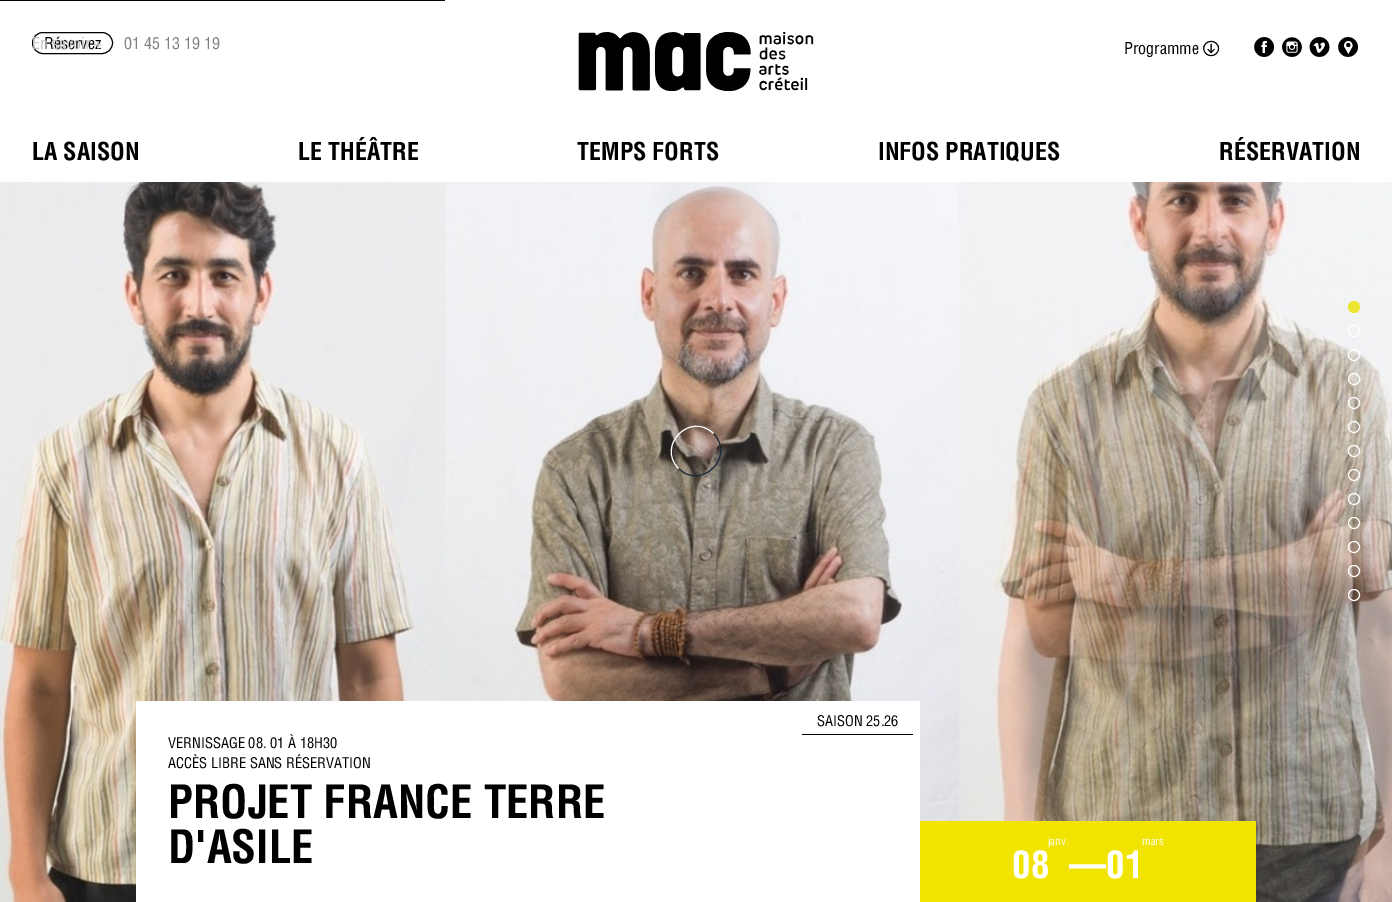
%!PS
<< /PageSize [1392 902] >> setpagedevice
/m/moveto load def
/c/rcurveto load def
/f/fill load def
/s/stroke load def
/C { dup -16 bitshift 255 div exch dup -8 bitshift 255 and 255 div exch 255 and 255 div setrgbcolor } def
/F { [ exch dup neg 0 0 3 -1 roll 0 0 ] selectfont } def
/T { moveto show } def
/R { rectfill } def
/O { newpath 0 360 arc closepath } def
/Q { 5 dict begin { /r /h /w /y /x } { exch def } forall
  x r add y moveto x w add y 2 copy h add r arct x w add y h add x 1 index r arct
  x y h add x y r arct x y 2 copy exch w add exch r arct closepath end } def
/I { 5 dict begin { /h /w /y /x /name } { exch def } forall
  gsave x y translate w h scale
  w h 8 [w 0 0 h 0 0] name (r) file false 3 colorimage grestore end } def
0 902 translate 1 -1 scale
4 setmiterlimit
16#FFFFFF C
0 0 1392 902 R
16#000000 C
0 0 445 1 R
(7.rgb) 0 182 1392 720 I
16#182937 C
713.5 433.5 m 22.5 23 -12 57.5 -35 35 c s
16#FFFFFF C
678.5 468.5 m -22.5 -23 12 -57.5 35 -35 c s
(1.rgb) 578 32 236 59 I
16#000000 C
32.5 32.5 80 21 10.5 Q s
/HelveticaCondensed-Medium 16 F
(Réservez) 44 49 T
16#C0C0C0 C
(En savoir +) 32 49 T
16#808080 C
(01 45 13 19 19) 124 49 T
16#000000 C
(Programme) 1124 54 T
(2.rgb) 1203 40 17 17 I
(3.rgb) 1254 37 21 20 I
(4.rgb) 1282 37 20 20 I
(5.rgb) 1309 37 21 20 I
(6.rgb) 1338 37 20 20 I
/HelveticaCondensed-Bold 24 F
(LA SAISON) 32 160 T
(LE THÉÂTRE) 298 160 T
(TEMPS FORTS) 577 160 T
(INFOS PRATIQUES) 878 160 T
(RÉSERVATION) 1219 160 T
16#ECE531 C
1354 307 6 O f
16#FFFFFF C
1354 331 5.5 O s
1354 355 5.5 O s
1354 379 5.5 O s
1354 403 5.5 O s
1354 427 5.5 O s
1354 451 5.5 O s
1354 475 5.5 O s
1354 499 5.5 O s
1354 523 5.5 O s
1354 547 5.5 O s
1354 571 5.5 O s
1354 595 5.5 O s
136 701 784 201 R
16#000000 C
802 734 111 1 R
/HelveticaCondensed-Medium 14.4 F
(SAISON 25.26) 817 726 T
(VERNISSAGE 08. 01 À 18H30) 168 748 T
(ACCÈS LIBRE SANS RÉSERVATION) 168 768 T
/HelveticaCondensed-Bold 44.75 F
(PROJET FRANCE TERRE) 168 818 T
(D'ASILE) 168 863 T
16#F0E400 C
920 821 336 81 R
/HelveticaCondensed-Medium 11 F
16#FFFFFF C
(janv.) 1048 845 T
(mars) 1142 845 T
/HelveticaCondensed-Bold 37 F
(08) 1012 878 T
(—01) 1069 878 T
showpage
